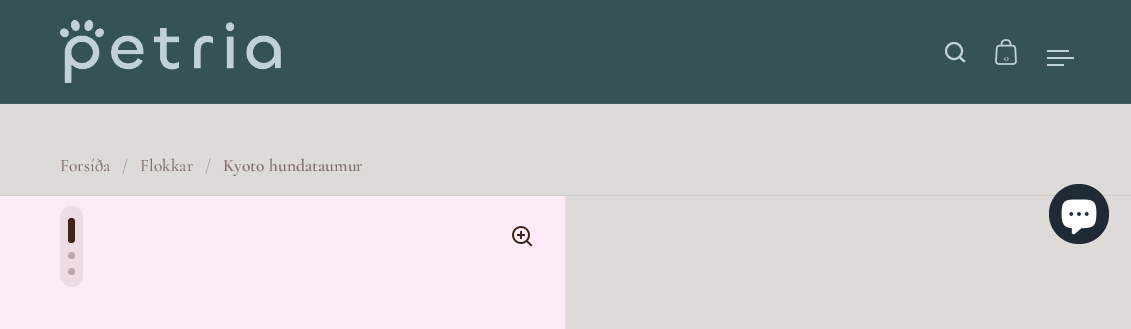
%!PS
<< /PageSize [1131 329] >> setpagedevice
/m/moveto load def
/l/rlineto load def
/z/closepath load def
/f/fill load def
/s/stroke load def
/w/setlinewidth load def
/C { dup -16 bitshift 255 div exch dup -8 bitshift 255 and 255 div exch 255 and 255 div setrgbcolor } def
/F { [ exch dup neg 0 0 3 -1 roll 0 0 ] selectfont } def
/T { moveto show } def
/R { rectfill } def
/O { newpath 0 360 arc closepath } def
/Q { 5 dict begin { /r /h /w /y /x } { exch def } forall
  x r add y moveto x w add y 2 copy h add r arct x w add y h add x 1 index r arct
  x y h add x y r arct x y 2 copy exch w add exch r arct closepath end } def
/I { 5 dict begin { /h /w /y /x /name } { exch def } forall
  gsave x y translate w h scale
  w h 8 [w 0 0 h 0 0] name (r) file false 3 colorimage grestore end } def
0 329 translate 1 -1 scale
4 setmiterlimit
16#DEDAD7 C
0 0 1131 329 R
16#355259 C
0 0 1131 103 R
16#405C63 C
0 103 1131 1 R
(1.rgb) 60 19 221 64 I
16#BFD1D9 C
2 w
954 51 8 O s
959 58 m 1.5 -1.5 l 5 4.5 l -1.5 1.5 l z f
(2.rgb) 995 39 22 26 I
/Cormorant-SemiBold 10 F
(0) 1004 61 T
1047 50 22 2 R
1047 57 27 2 R
1047 64 17 2 R
16#D1CBC8 C
0 195 1131 1 R
/Cormorant-Medium 17.5 F
16#827069 C
(Forsíða) 60 171 T
16#A59893 C
(/) 122 171 T
16#827069 C
(Flokkar) 140 171 T
16#A59893 C
(/) 205 171 T
/Cormorant-SemiBold 17.5 F
16#827069 C
(Kyoto hundataumur) 223 171 T
16#FDECF6 C
0 196 565 133 R
(3.rgb) 512 226 21 21 I
16#EEDCE4 C
60 206 23 81 11.5 Q f
16#40241A C
68 218 7 25 3.5 Q f
16#BDA8AB C
71.5 255.5 3.5 O f
71.5 271.5 3.5 O f
16#EEDCE4 C
565 196 1 133 R
16#202A36 C
1079 214 30 O f
(4.rgb) 1061 199 36 36 I
showpage
